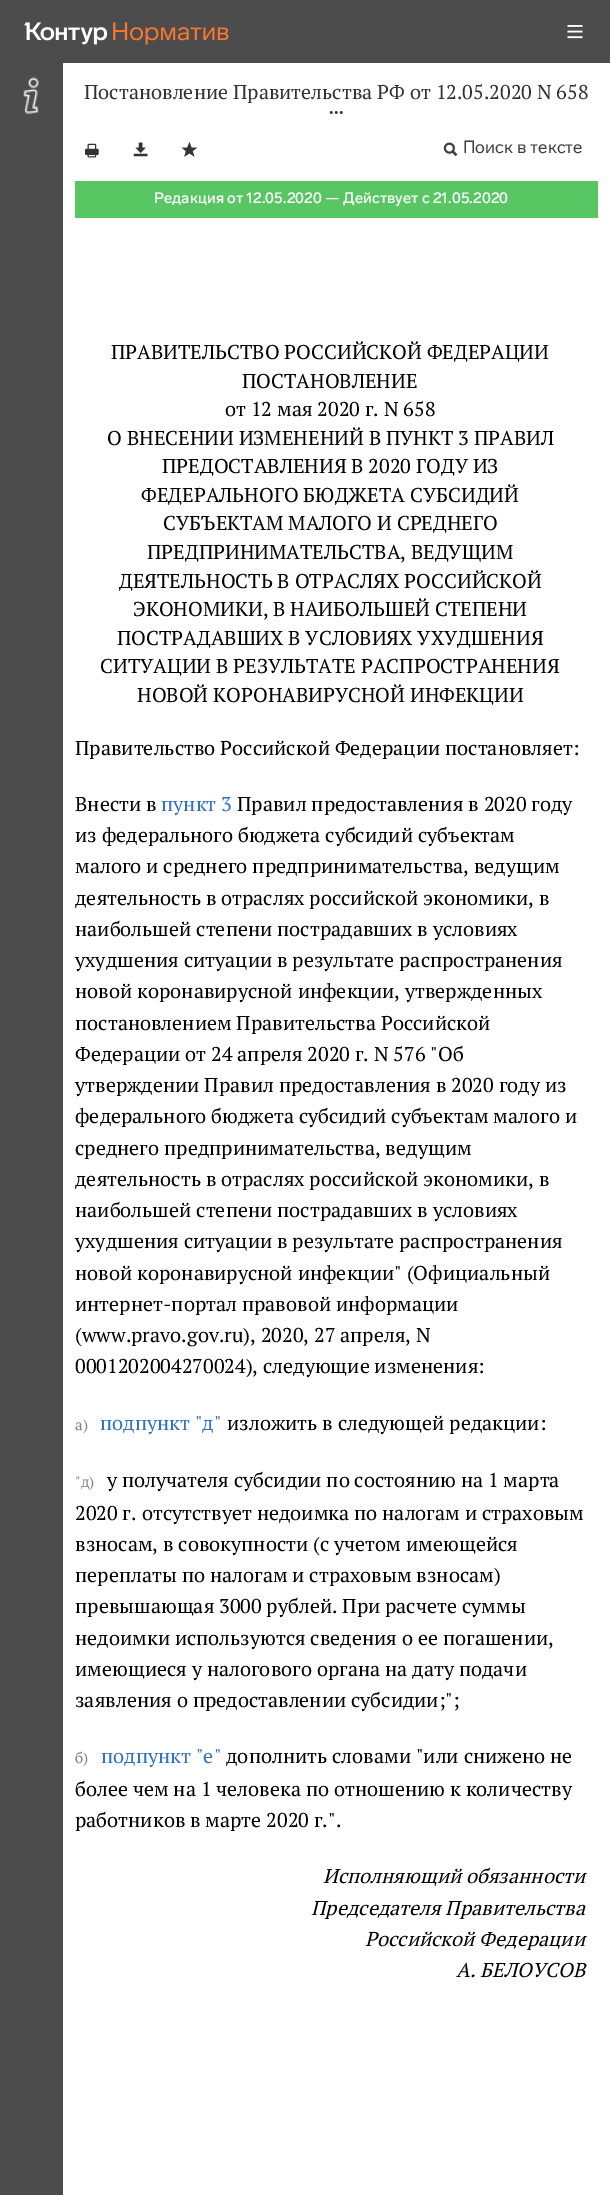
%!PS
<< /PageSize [610 2195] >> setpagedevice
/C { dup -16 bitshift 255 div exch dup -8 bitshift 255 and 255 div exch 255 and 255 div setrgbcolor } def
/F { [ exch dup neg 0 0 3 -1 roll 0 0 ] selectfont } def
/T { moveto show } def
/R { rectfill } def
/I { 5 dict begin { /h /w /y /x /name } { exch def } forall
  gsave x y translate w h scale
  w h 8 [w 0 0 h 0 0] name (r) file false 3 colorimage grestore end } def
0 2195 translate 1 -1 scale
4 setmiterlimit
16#FFFFFF C
0 0 610 2195 R
16#4C4C4C C
0 0 610 63 R
(1.rgb) 24 22 84 23 I
(2.rgb) 113 22 116 23 I
(3.rgb) 567 25 16 14 I
0 63 63 2132 R
(4.rgb) 23 77 16 37 I
/PTSerif-Regular 20 F
16#333333 C
(Постановление Правительства РФ от 12.05.2020 N 658) 84 99 T
(5.rgb) 329 111 14 3 I
(6.rgb) 85 143 14 15 I
(7.rgb) 133 142 15 15 I
(8.rgb) 181 141 17 16 I
(9.rgb) 443 142 15 15 I
/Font-Regular 17.5 F
16#404040 C
(Поиск в тексте) 463 153 T
16#57C663 C
75 181 523 37 R
/Font-Medium 15 F
16#FFFFFF C
(Редакция от 12.05.2020 — Действует с 21.05.2020) 154 203 T
/PTSerif-Regular 20 F
16#000000 C
(ПРАВИТЕЛЬСТВО РОССИЙСКОЙ ФЕДЕРАЦИИ) 111 359 T
(ПОСТАНОВЛЕНИЕ) 242 388 T
(от 12 мая 2020 г. N 658) 225 416 T
(О ВНЕСЕНИИ ИЗМЕНЕНИЙ В ПУНКТ 3 ПРАВИЛ) 107 445 T
(ПРЕДОСТАВЛЕНИЯ В 2020 ГОДУ ИЗ) 162 473 T
(ФЕДЕРАЛЬНОГО БЮДЖЕТА СУБСИДИЙ) 141 502 T
(СУБЪЕКТАМ МАЛОГО И СРЕДНЕГО) 163 530 T
(ПРЕДПРИНИМАТЕЛЬСТВА, ВЕДУЩИМ) 147 559 T
(ДЕЯТЕЛЬНОСТЬ В ОТРАСЛЯХ РОССИЙСКОЙ) 119 588 T
(ЭКОНОМИКИ, В НАИБОЛЬШЕЙ СТЕПЕНИ) 133 616 T
(ПОСТРАДАВШИХ В УСЛОВИЯХ УХУДШЕНИЯ) 117 645 T
(СИТУАЦИИ В РЕЗУЛЬТАТЕ РАСПРОСТРАНЕНИЯ) 100 673 T
(НОВОЙ КОРОНАВИРУСНОЙ ИНФЕКЦИИ) 137 702 T
(Правительство Российской Федерации постановляет:) 75 755 T
(Внести в) 75 811 T
16#3072C4 C
(пункт 3) 161 811 T
16#000000 C
(Правил предоставления в 2020 году) 237 811 T
(из федерального бюджета субсидий субъектам) 75 842 T
(малого и среднего предпринимательства, ведущим) 75 873 T
(деятельность в отраслях российской экономики, в) 75 905 T
(наибольшей степени пострадавших в условиях) 75 936 T
(ухудшения ситуации в результате распространения) 75 967 T
(новой коронавирусной инфекции, утвержденных) 75 998 T
(постановлением Правительства Российской) 75 1030 T
(Федерации от 24 апреля 2020 г. N 576 "Об) 75 1061 T
(утверждении Правил предоставления в 2020 году из) 75 1092 T
(федерального бюджета субсидий субъектам малого и) 75 1123 T
(среднего предпринимательства, ведущим) 75 1155 T
(деятельность в отраслях российской экономики, в) 75 1186 T
(наибольшей степени пострадавших в условиях) 75 1217 T
(ухудшения ситуации в результате распространения) 75 1248 T
(новой коронавирусной инфекции" \(Официальный) 75 1280 T
(интернет-портал правовой информации) 75 1311 T
(\(www.pravo.gov.ru\), 2020, 27 апреля, N) 75 1342 T
(0001202004270024\), следующие изменения:) 75 1373 T
/PTSerif-Regular 15 F
16#808080 C
(а\)) 75 1430 T
/PTSerif-Regular 20 F
16#3072C4 C
(подпункт "д") 100 1430 T
16#000000 C
(изложить в следующей редакции:) 227 1430 T
/PTSerif-Regular 15 F
16#808080 C
("д\)) 75 1487 T
/PTSerif-Regular 20 F
16#000000 C
(у получателя субсидии по состоянию на 1 марта) 107 1487 T
(2020 г. отсутствует недоимка по налогам и страховым) 75 1520 T
(взносам, в совокупности \(с учетом имеющейся) 75 1551 T
(переплаты по налогам и страховым взносам\)) 75 1582 T
(превышающая 3000 рублей. При расчете суммы) 75 1613 T
(недоимки используются сведения о ее погашении,) 75 1645 T
(имеющиеся у налогового органа на дату подачи) 75 1676 T
(заявления о предоставлении субсидии;";) 75 1707 T
/PTSerif-Regular 15 F
16#808080 C
(б\)) 75 1763 T
/PTSerif-Regular 20 F
16#3072C4 C
(подпункт "е") 101 1763 T
16#000000 C
(дополнить словами "или снижено не) 226 1763 T
(более чем на 1 человека по отношению к количеству) 75 1796 T
(работников в марте 2020 г.".) 75 1827 T
/PTSerif-Italic 20 F
(Исполняющий обязанности) 323 1883 T
(Председателя Правительства) 311 1915 T
(Российской Федерации) 365 1946 T
(А. БЕЛОУСОВ) 456 1977 T
showpage
